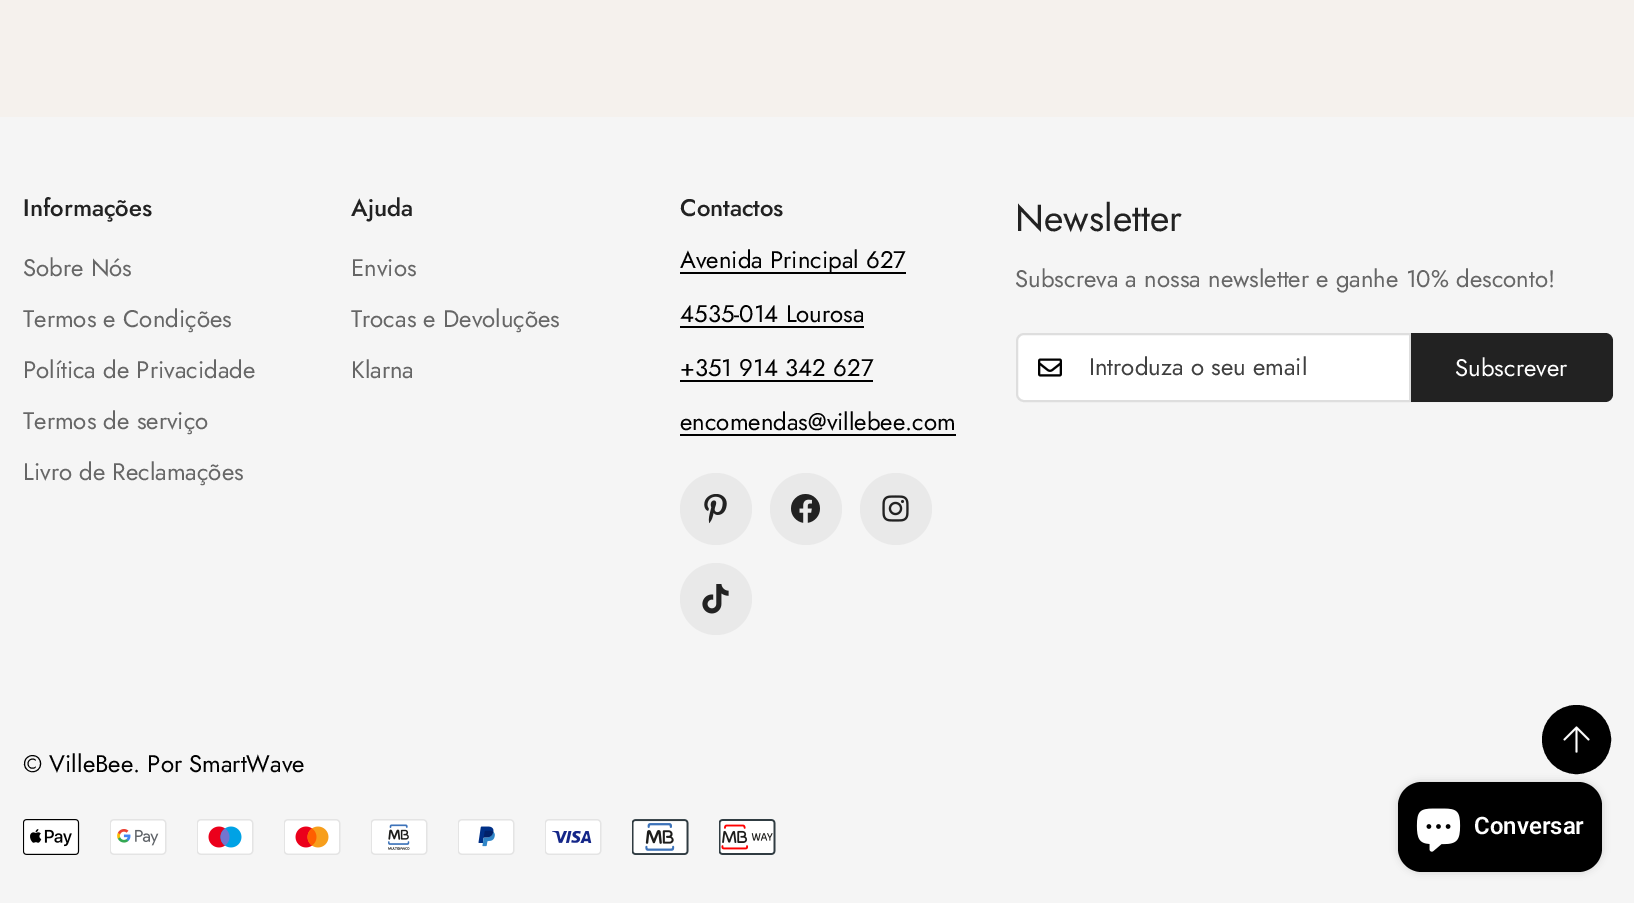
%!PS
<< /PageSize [1634 903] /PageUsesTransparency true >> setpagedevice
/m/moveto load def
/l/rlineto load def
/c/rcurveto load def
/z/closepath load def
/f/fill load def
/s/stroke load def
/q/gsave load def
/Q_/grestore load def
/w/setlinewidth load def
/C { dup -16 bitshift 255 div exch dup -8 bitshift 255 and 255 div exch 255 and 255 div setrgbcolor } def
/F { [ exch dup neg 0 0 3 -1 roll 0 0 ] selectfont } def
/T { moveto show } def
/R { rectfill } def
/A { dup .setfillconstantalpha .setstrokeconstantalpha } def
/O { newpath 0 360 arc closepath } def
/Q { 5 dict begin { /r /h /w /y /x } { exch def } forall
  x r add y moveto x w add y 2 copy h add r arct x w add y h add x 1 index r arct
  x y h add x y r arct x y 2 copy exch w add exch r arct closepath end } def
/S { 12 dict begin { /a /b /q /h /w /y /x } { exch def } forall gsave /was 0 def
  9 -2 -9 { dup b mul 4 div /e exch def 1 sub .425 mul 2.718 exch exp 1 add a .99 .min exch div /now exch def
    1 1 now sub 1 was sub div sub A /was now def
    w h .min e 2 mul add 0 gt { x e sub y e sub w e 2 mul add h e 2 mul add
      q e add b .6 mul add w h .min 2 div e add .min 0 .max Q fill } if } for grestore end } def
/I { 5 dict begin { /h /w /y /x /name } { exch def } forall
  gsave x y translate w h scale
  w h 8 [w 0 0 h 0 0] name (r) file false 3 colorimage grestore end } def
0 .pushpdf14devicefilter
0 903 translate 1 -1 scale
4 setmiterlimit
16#F5F1ED C
0 0 1634 903 R
16#F5F5F5 C
0 117 1634 786 R
/Jost-Medium 24 F
16#222222 C
(Informações) 23 216 T
/Jost-Regular 24 F
16#666666 C
(Sobre Nós) 23 276 T
(Termos e Condições) 23 327 T
(Política de Privacidade) 23 378 T
(Termos de serviço) 23 429 T
(Livro de Reclamações) 23 480 T
/Jost-Medium 24 F
16#222222 C
(Ajuda) 351 216 T
/Jost-Regular 24 F
16#666666 C
(Envios) 351 276 T
(Trocas e Devoluções) 351 327 T
(Klarna) 351 378 T
/Jost-Medium 24 F
16#222222 C
(Contactos) 680 216 T
/Jost-Regular 24 F
16#000000 C
(Avenida Principal 627) 680 268 T
680 272 226 2 R
(4535-014 Lourosa) 680 322 T
680 326 184 2 R
(+351 914 342 627) 680 376 T
680 380 193 2 R
(encomendas@villebee.com) 680 430 T
680 434 276 2 R
16#E9E9E9 C
716 509 36 O f
(1.rgb) 704 494 23 30 I
806 509 36 O f
(2.rgb) 791 494 29 29 I
896 509 36 O f
(3.rgb) 882 495 27 27 I
716 599 36 O f
(4.rgb) 702 584 27 30 I
/Jost-Regular 37.5 F
16#222222 C
(Newsletter) 1015 231 T
/Jost-Regular 24 F
16#666666 C
(Subscreva a nossa newsletter e ganhe 10% desconto!) 1015 287 T
16#FFFFFF C
1017 334 595 67 7 Q q f Q_
16#DEDEDE C
2 w
s
(5.rgb) 1038 358 24 19 I
16#404040 C
(Introduza o seu email) 1089 375 T
16#222222 C
1410 333 m 195 0 l 4.5 0 8 3.5 8 8 c 0 53 l 0 4.5 -3.5 8 -8 8 c -195 0 l z f
16#DEDEDE C
1409 333 2 69 R
16#FFFFFF C
(Subscrever) 1455 376 T
16#000000 C
(© VilleBee. Por SmartWave) 23 772 T
(6.rgb) 23 819 57 36 I
(7.rgb) 110 819 57 36 I
(8.rgb) 197 819 57 36 I
(9.rgb) 284 819 57 36 I
(10.rgb) 371 819 57 36 I
(11.rgb) 458 819 57 36 I
(12.rgb) 545 819 57 36 I
(13.rgb) 632 819 57 36 I
(14.rgb) 719 819 57 36 I
1576.5 739.5 33.5 O q f Q_
s
(15.rgb) 1563 726 27 27 I
1398 782 204 90 24 4 .15 S
1398 782 204 90 24 Q f
(16.rgb) 1416 808 45 44 I
/Roboto-SemiBold 24 F
16#FFFFFF C
(Conversar) 1474 834 T
.poppdf14devicefilter showpage
